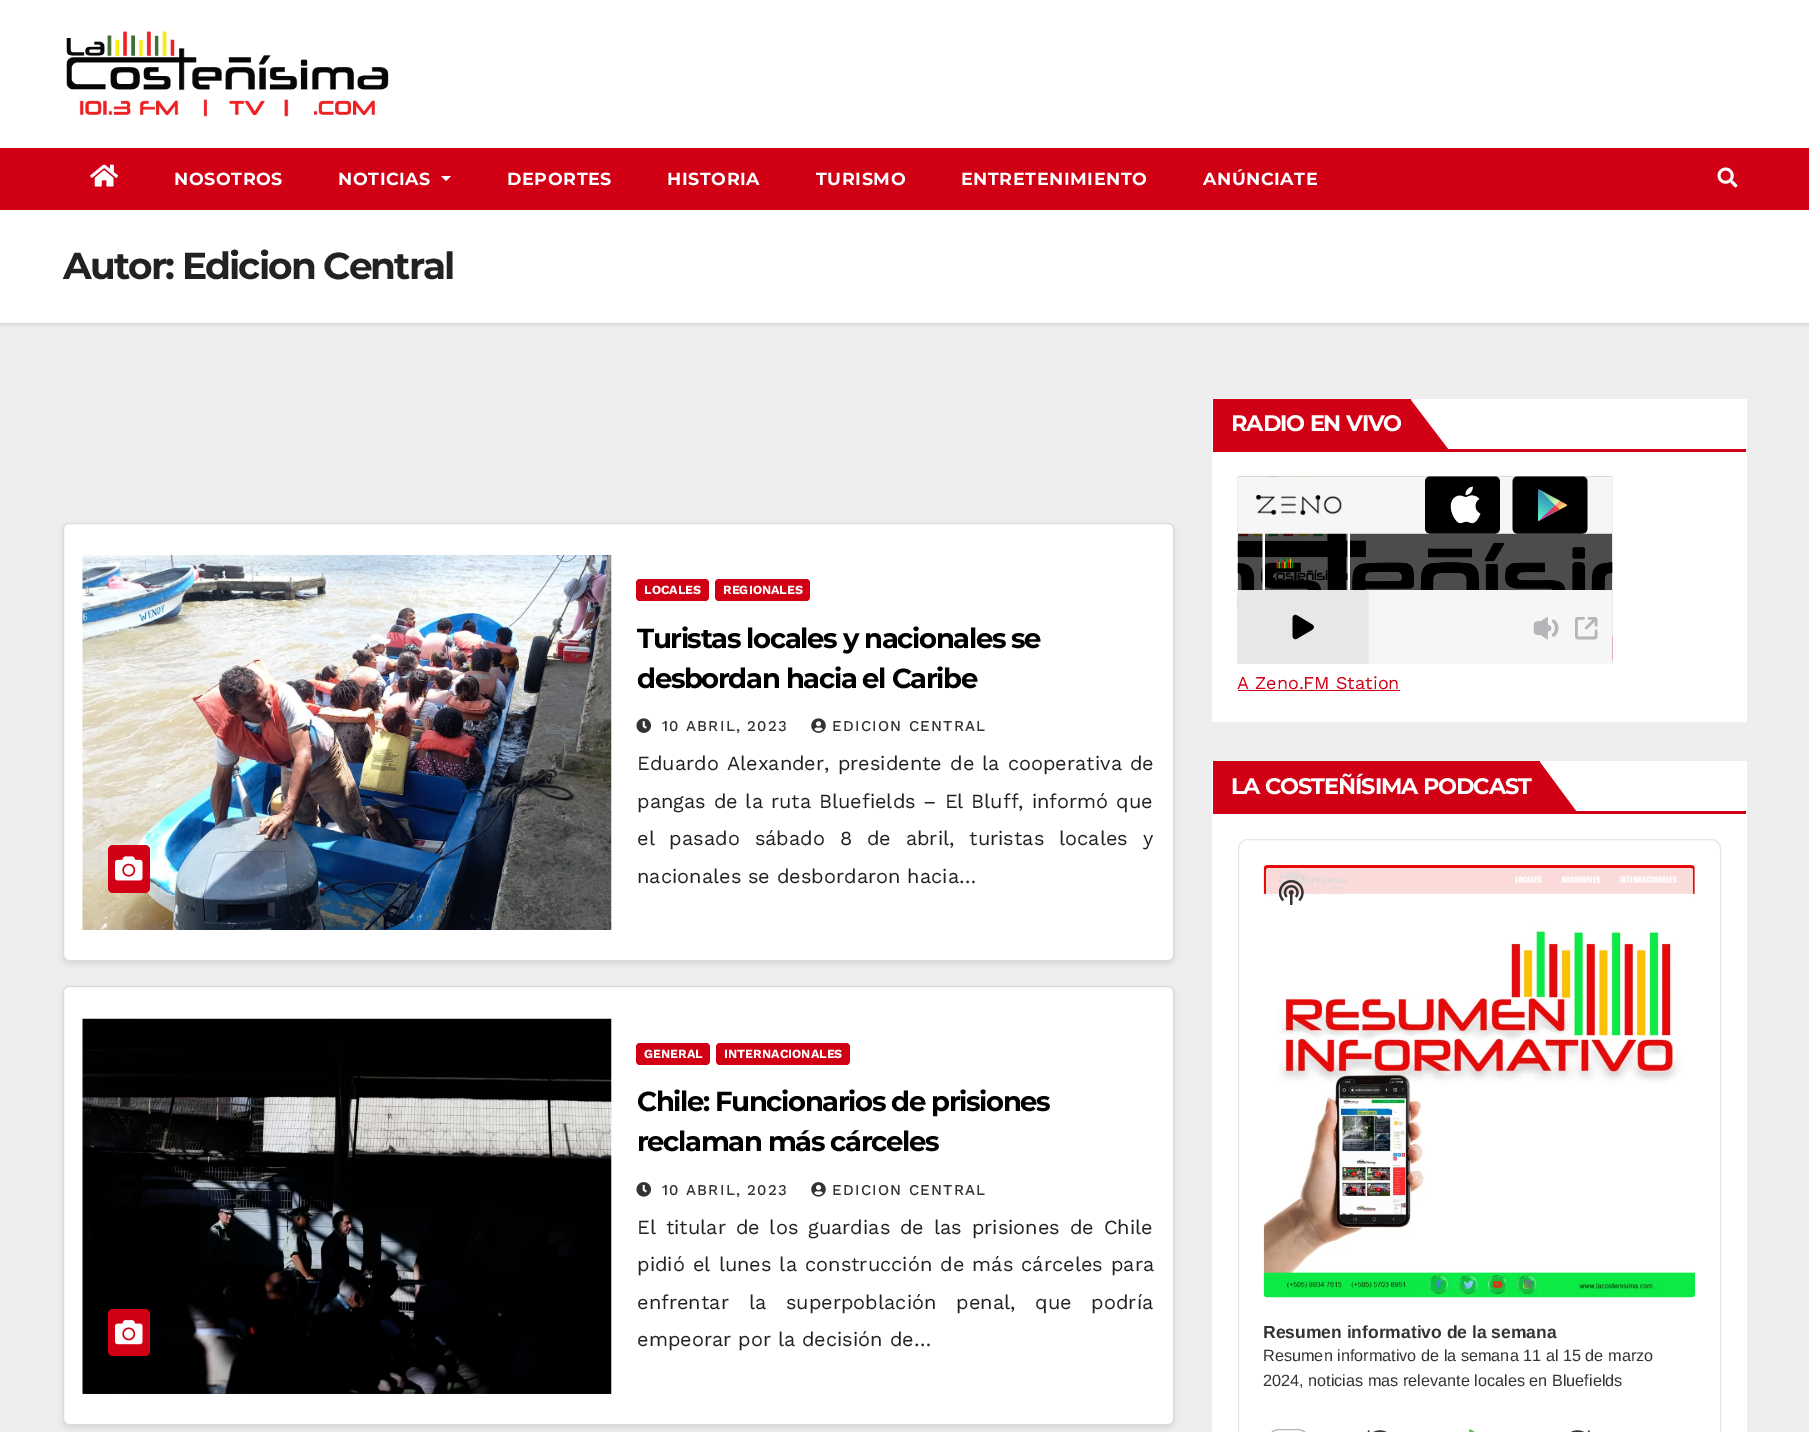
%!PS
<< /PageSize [1809 1432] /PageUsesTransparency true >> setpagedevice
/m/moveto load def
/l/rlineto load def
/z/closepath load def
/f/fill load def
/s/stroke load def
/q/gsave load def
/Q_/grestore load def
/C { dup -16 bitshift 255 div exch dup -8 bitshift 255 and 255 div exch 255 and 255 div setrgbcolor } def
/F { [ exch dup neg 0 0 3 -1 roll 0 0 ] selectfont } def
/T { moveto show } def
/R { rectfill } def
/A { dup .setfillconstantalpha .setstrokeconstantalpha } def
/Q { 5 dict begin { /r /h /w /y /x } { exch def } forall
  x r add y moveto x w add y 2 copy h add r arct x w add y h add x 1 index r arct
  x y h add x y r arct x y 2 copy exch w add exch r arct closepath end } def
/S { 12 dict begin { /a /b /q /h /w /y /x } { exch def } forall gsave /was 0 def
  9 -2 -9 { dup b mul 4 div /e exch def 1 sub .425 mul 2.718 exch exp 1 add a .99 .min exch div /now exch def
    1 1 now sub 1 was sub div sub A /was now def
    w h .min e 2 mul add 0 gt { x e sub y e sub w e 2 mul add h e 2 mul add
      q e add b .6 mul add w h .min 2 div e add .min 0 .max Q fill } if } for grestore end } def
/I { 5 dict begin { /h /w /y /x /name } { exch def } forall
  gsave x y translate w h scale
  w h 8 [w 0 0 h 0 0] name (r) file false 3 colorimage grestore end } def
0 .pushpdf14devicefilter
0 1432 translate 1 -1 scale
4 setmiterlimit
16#EEEEEE C
0 0 1809 1432 R
16#FFFFFF C
0 0 1809 148 R
(1.rgb) 66 31 323 86 I
16#000000 C
0 211 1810 113 0 2 .15 S
16#D10014 C
0 148 1809 62 R
(2.rgb) 90 164 29 23 I
/Montserrat-Bold 17.5 F
16#FFFFFF C
174 185 m .6 0 (NOSOTROS) ashow
338 185 m .6 0 (NOTICIAS) ashow
441 176 m 10 0 l -5 5 l z f
507 185 m .6 0 (DEPORTES) ashow
667 185 m .6 0 (HISTORIA) ashow
816 185 m .6 0 (TURISMO) ashow
961 185 m .6 0 (ENTRETENIMIENTO) ashow
1203 185 m .6 0 (ANÚNCIATE) ashow
(3.rgb) 1717 167 21 21 I
0 210 1809 113 R
/Montserrat-Bold 37.5 F
16#222222 C
63 279 m -1.9 0 (Autor: Edicion Central) ashow
16#000000 C
63 525 1111 439 6 2.5 .08 S
16#FFFFFF C
63.5 523.5 1110 437 5.5 Q q f Q_
16#DDDCDC C
s
(4.rgb) 82 555 530 375 I
16#D10014 C
108 845 42 48 5 Q f
(5.rgb) 115 856 28 25 I
636 579 73 22 4 Q f
/WorkSans-Bold 12.5 F
16#FFFFFF C
(LOCALES) 644 594 T
16#D10014 C
715 579 95 22 4 Q f
16#FFFFFF C
(REGIONALES) 723 594 T
/Montserrat-Bold 27.5 F
16#000000 C
637 648 m -1.4 0 (Turistas locales y nacionales se) ashow
637 688 m -1.4 0 (desbordan hacia el Caribe) ashow
(6.rgb) 636 718 15 15 I
/WorkSans-Medium 15 F
16#333333 C
662 731 m 1.25 0 (10 ABRIL, 2023) ashow
(7.rgb) 811 718 15 15 I
832 731 m 1.25 0 (EDICION CENTRAL) ashow
/WorkSans-Regular 20 F
16#222222 C
637 770 m 1.25 0 32 (Eduardo Alexander, presidente de la cooperativa de) widthshow
637 808 m 1 0 32 (pangas de la ruta Bluefields – El Bluff, informó que) widthshow
637 845 m 8 0 32 (el pasado sábado 8 de abril, turistas locales y) widthshow
(nacionales se desbordaron hacia…) 637 883 T
16#000000 C
63 989 1111 439 6 2.5 .08 S
16#FFFFFF C
63.5 986.5 1110 438 5.5 Q q f Q_
16#DDDCDC C
s
(8.rgb) 82 1018 530 376 I
16#D10014 C
108 1309 42 47 5 Q f
(9.rgb) 115 1320 28 25 I
636 1043 74 22 4 Q f
/WorkSans-Bold 12.5 F
16#FFFFFF C
(GENERAL) 644 1058 T
16#D10014 C
716 1043 134 22 4 Q f
16#FFFFFF C
(INTERNACIONALES) 724 1058 T
/Montserrat-Bold 27.5 F
16#000000 C
637 1111 m -1.4 0 (Chile: Funcionarios de prisiones) ashow
637 1151 m -1.4 0 (reclaman más cárceles) ashow
(10.rgb) 636 1182 15 15 I
/WorkSans-Medium 15 F
16#333333 C
662 1195 m 1.25 0 (10 ABRIL, 2023) ashow
(11.rgb) 811 1182 15 15 I
832 1195 m 1.25 0 (EDICION CENTRAL) ashow
/WorkSans-Regular 20 F
16#222222 C
637 1234 m 3 0 32 (El titular de los guardias de las prisiones de Chile) widthshow
637 1271 m 1.25 0 32 (pidió el lunes la construcción de más cárceles para) widthshow
637 1309 m 13 0 32 (enfrentar la superpoblación penal, que podría) widthshow
(empeorar por la decisión de…) 637 1346 T
16#FFFFFF C
1212 399 535 323 R
16#D10014 C
1213 449 533 3 R
1213 399 198 50 R
/Montserrat-Bold 22.5 F
16#FFFFFF C
1231 431 m -1.1 0 (RADIO EN VIVO) ashow
16#D10014 C
1410 449 m 0 -50 l 38 50 l z f
(12.rgb) 1237 476 376 188 I
/WorkSans-Regular 18 F
(A Zeno.FM Station) 1237 689 T
1238 690 162 1 R
16#FFFFFF C
1212 761 535 671 R
16#D10014 C
1213 811 533 3 R
1213 761 327 50 R
/Montserrat-Bold 22.5 F
16#FFFFFF C
1231 794 m -1.1 0 (LA COSTEÑÍSIMA PODCAST) ashow
16#D10014 C
1539 811 m 0 -50 l 37 50 l z f
16#E6E6E6 C
1238.5 839.5 482 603 9.5 Q s
(14.rgb) 1263 865 432 433 I
0.85 A
16#FFFFFF C
1266 868 427 50 2.5 Q f
1 A
(13.rgb) 1279 880 25 25 I
/LiberationSans-Bold 17.5 F
16#333333 C
(Resumen informativo de la semana) 1263 1338 T
/LiberationSans-Regular 16.25 F
(Resumen informativo de la semana 11 al 15 de marzo) 1263 1361 T
(2024, noticias mas relevante locales en Bluefields) 1263 1386 T
16#B3B3B3 C
1266.5 1429.5 44 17 13 Q s
(15.rgb) 1367 1430 20 2 I
(16.rgb) 1469 1429 6 3 I
(17.rgb) 1571 1430 19 2 I
.poppdf14devicefilter showpage
